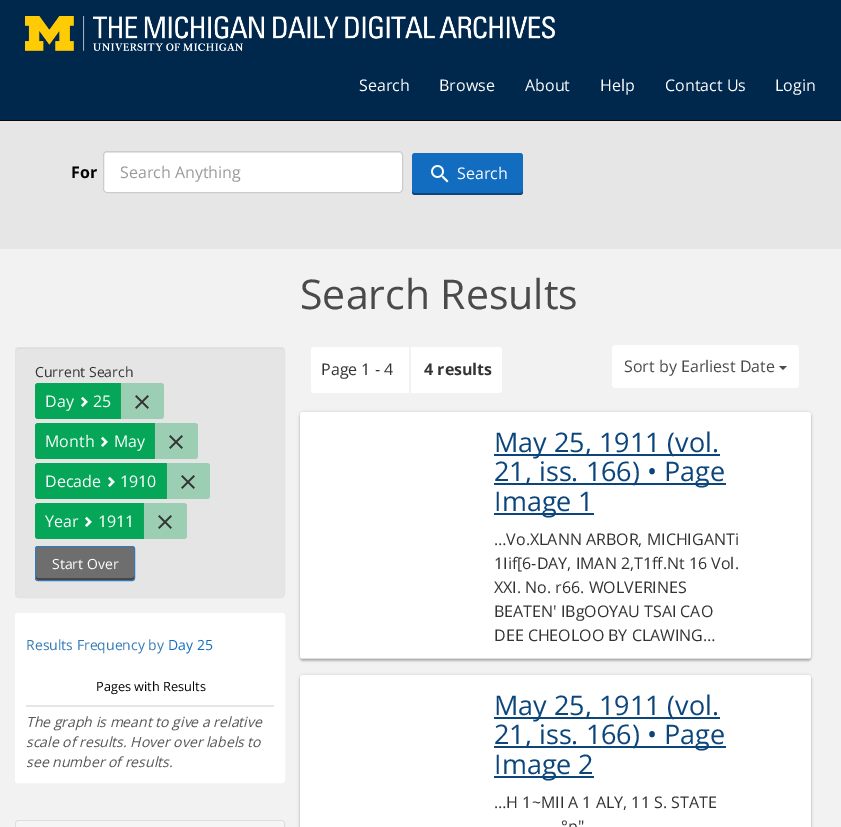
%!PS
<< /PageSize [841 827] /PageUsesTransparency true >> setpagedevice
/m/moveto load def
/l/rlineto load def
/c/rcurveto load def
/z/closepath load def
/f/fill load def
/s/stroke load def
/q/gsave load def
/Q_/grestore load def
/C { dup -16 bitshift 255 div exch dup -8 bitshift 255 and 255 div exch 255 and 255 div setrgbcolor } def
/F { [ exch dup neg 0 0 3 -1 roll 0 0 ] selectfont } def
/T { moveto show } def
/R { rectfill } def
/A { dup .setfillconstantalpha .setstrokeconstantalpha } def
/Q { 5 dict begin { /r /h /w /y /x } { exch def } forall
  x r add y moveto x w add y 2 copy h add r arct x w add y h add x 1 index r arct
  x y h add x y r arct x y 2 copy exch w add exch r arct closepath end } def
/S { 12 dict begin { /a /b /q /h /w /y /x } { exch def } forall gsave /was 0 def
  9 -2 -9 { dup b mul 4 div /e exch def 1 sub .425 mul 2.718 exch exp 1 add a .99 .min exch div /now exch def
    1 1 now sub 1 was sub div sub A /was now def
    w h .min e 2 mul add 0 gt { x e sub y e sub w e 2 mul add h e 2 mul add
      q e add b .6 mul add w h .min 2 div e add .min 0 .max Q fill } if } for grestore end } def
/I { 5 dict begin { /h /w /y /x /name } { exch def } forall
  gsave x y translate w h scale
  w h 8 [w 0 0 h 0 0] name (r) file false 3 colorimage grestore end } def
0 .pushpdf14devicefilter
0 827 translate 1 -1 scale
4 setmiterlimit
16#F2F2F2 C
0 0 841 827 R
16#00274C C
0 0 841 120 R
16#090909 C
0 120 841 1 R
(1.rgb) 25 16 530 35 I
/OpenSans-Regular 16 F
16#FFFFFF C
(Search) 359 91 T
(Browse) 439 91 T
(About) 525 91 T
(Help) 600 91 T
(Contact Us) 665 91 T
(Login) 775 91 T
16#E7E7E7 C
0 248 841 1 R
16#E6E6E6 C
0 121 841 127 R
/OpenSans-Bold 16 F
16#000000 C
(For) 71 178 T
16#FFFFFF C
103 151 300 42 4 Q f
16#ECECEC C
107 153 m 292 0 l 2 0 3 1 3 3 c -1 -3 l -1 -1 l -293 0 l -2 0 -3 2 -3 4 c 0 -2 1 -3 3 -3 c z f
16#CCCCCC C
103.5 151.5 299 41 3.5 Q s
/OpenSans-Regular 16 F
16#999999 C
(Search Anything) 120 178 T
16#126DC1 C
412 153 111 42 3 Q f
0.36 A
16#000000 C
412 190 m 0 2 l 0 2 1 3 3 3 c 105 0 l 2 0 3 -1 3 -3 c 0 -2 l 0 2 -1 3 -3 3 c -105 0 l -2 0 -3 -1 -3 -3 c z f
1 A
(2.rgb) 431 165 18 18 I
16#FFFFFF C
(Search) 457 179 T
/OpenSans-Regular 41 F
16#4A4A4A C
(Search Results) 300 309 T
16#E5E5E5 C
15 347 270 251 4 Q f
16#DADADA C
19 349 m 262 0 l 2 0 3 1 3 3 c 0 -2 -1 -4 -3 -4 c -262 0 l -2 0 -3 2 -3 4 c 0 -2 1 -3 3 -3 c z f
16#E3E3E3 C
15.5 347.5 269 250 3.5 Q s
/OpenSans-Regular 14 F
16#333333 C
(Current Search) 35 377 T
16#05A657 C
38 383 m 83 0 l 0 36 l -83 0 l -1.5 0 -3 -1.5 -3 -3 c 0 -30 l 0 -1.5 1.5 -3 3 -3 c z f
/OpenSans-Regular 16 F
16#FFFFFF C
(Day) 45 407 T
(3.rgb) 81 396 7 11 I
(25) 93 407 T
0.36 A
16#1AA55A C
120 383 m 41 0 l 1.5 0 3 1.5 3 3 c 0 30 l 0 1.5 -1.5 3 -3 3 c -41 0 l z f
1 A
(4.rgb) 135 395 14 14 I
16#05A657 C
38 423 m 117 0 l 0 36 l -117 0 l -1.5 0 -3 -1.5 -3 -3 c 0 -30 l 0 -1.5 1.5 -3 3 -3 c z f
16#FFFFFF C
(Month) 45 447 T
(3.rgb) 101 436 7 11 I
(May) 114 447 T
0.36 A
16#1AA55A C
154 423 m 41 0 l 1.5 0 3 1.5 3 3 c 0 30 l 0 1.5 -1.5 3 -3 3 c -41 0 l z f
1 A
(4.rgb) 169 435 14 14 I
16#05A657 C
38 463 m 129 0 l 0 36 l -129 0 l -1.5 0 -3 -1.5 -3 -3 c 0 -30 l 0 -1.5 1.5 -3 3 -3 c z f
16#FFFFFF C
(Decade) 45 487 T
(3.rgb) 108 476 7 11 I
(1910) 120 487 T
0.36 A
16#1AA55A C
166 463 m 41 0 l 1.5 0 3 1.5 3 3 c 0 30 l 0 1.5 -1.5 3 -3 3 c -41 0 l z f
1 A
(4.rgb) 181 475 14 14 I
16#05A657 C
38 503 m 106 0 l 0 36 l -106 0 l -1.5 0 -3 -1.5 -3 -3 c 0 -30 l 0 -1.5 1.5 -3 3 -3 c z f
16#FFFFFF C
(Year) 45 527 T
(3.rgb) 85 516 7 11 I
(1911) 98 527 T
0.36 A
16#1AA55A C
143 503 m 41 0 l 1.5 0 3 1.5 3 3 c 0 30 l 0 1.5 -1.5 3 -3 3 c -41 0 l z f
1 A
(4.rgb) 158 515 14 14 I
16#6E6E6E C
35 546 100 35 3 Q f
16#464646 C
36 576 m 0 2 l 0 1 1 2 2 2 c 94 0 l 1 0 2 -1 2 -2 c 0 -2 l 0 1 -1 2 -2 2 c -94 0 l -1 0 -2 -1 -2 -2 c z f
16#337AB7 C
35.5 546.5 99 34 2.5 Q s
/OpenSans-Regular 14 F
16#FFFFFF C
(Start Over) 52 569 T
15.5 613.5 269 169 2.5 Q q f Q_
s
16#337AB7 C
(Results Frequency by) 26 650 T
16#126DC1 C
(Day 25) 168 650 T
/OpenSans-Regular 12.75 F
16#000000 C
(Pages with Results) 96 691 T
16#E5E5E5 C
26 705 248 2 R
/OpenSans-Italic 14 F
16#555555 C
(The graph is meant to give a relative) 26 727 T
(scale of results. Hover over labels to) 26 747 T
(see number of results.) 26 767 T
16#DDDDDD C
15.5 820.5 269 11 3.5 Q s
16#F5F5F5 C
19 821 m 262 0 l 1.5 0 3 1.5 3 3 c 0 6 l -268 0 l 0 -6 l 0 -1.5 1.5 -3 3 -3 c z f
16#FFFFFF C
311 347 191 46 3 Q f
16#F2F2F2 C
409 347 2 46 R
/OpenSans-Regular 16 F
16#333333 C
(Page 1 - 4) 321 375 T
/OpenSans-Bold 16 F
(4 results) 424 375 T
16#FFFFFF C
612 345 187 43 4 Q f
/OpenSans-Regular 16 F
16#4A4A4A C
(Sort by Earliest Date) 624 372 T
779 366 m 8 0 l -4 4 l z f
16#000000 C
300 412 511 247 3 1.5 .12 S
300 414 511 247 3 1 .24 S
16#FFFFFF C
300 412 511 247 3 Q f
16#DDDDDD C
302 658 508 1 R
16#0B457B C
494 454 226 2 R
/OpenSans-Regular 27 F
(May 25, 1911 \(vol.) 494 452 T
494 483 232 2 R
(21, iss. 166\) • Page) 494 481 T
494 513 100 2 R
(Image 1) 494 511 T
/OpenSans-Regular 16 F
16#333333 C
(…Vo.XLANN ARBOR, MICHIGANTi) 494 545 T
(1Iif[6-DAY, IMAN 2,T1ff.Nt 16 Vol.) 494 569 T
(XXI. No. r66. WOLVERINES) 494 593 T
(BEATEN' IBgOOYAU TSAI CAO) 494 617 T
(DEE CHEOLOO BY CLAWING…) 494 641 T
16#000000 C
300 675 511 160 3 1.5 .12 S
300 677 511 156 3 1 .24 S
16#FFFFFF C
300 675 511 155 3 Q f
16#0B457B C
494 717 226 2 R
/OpenSans-Regular 27 F
(May 25, 1911 \(vol.) 494 715 T
494 746 232 2 R
(21, iss. 166\) • Page) 494 744 T
494 776 100 2 R
(Image 2) 494 774 T
/OpenSans-Regular 16 F
16#333333 C
(…H 1~MII A 1 ALY, 11 S. STATE) 494 808 T
(°p") 561 832 T
.poppdf14devicefilter showpage
